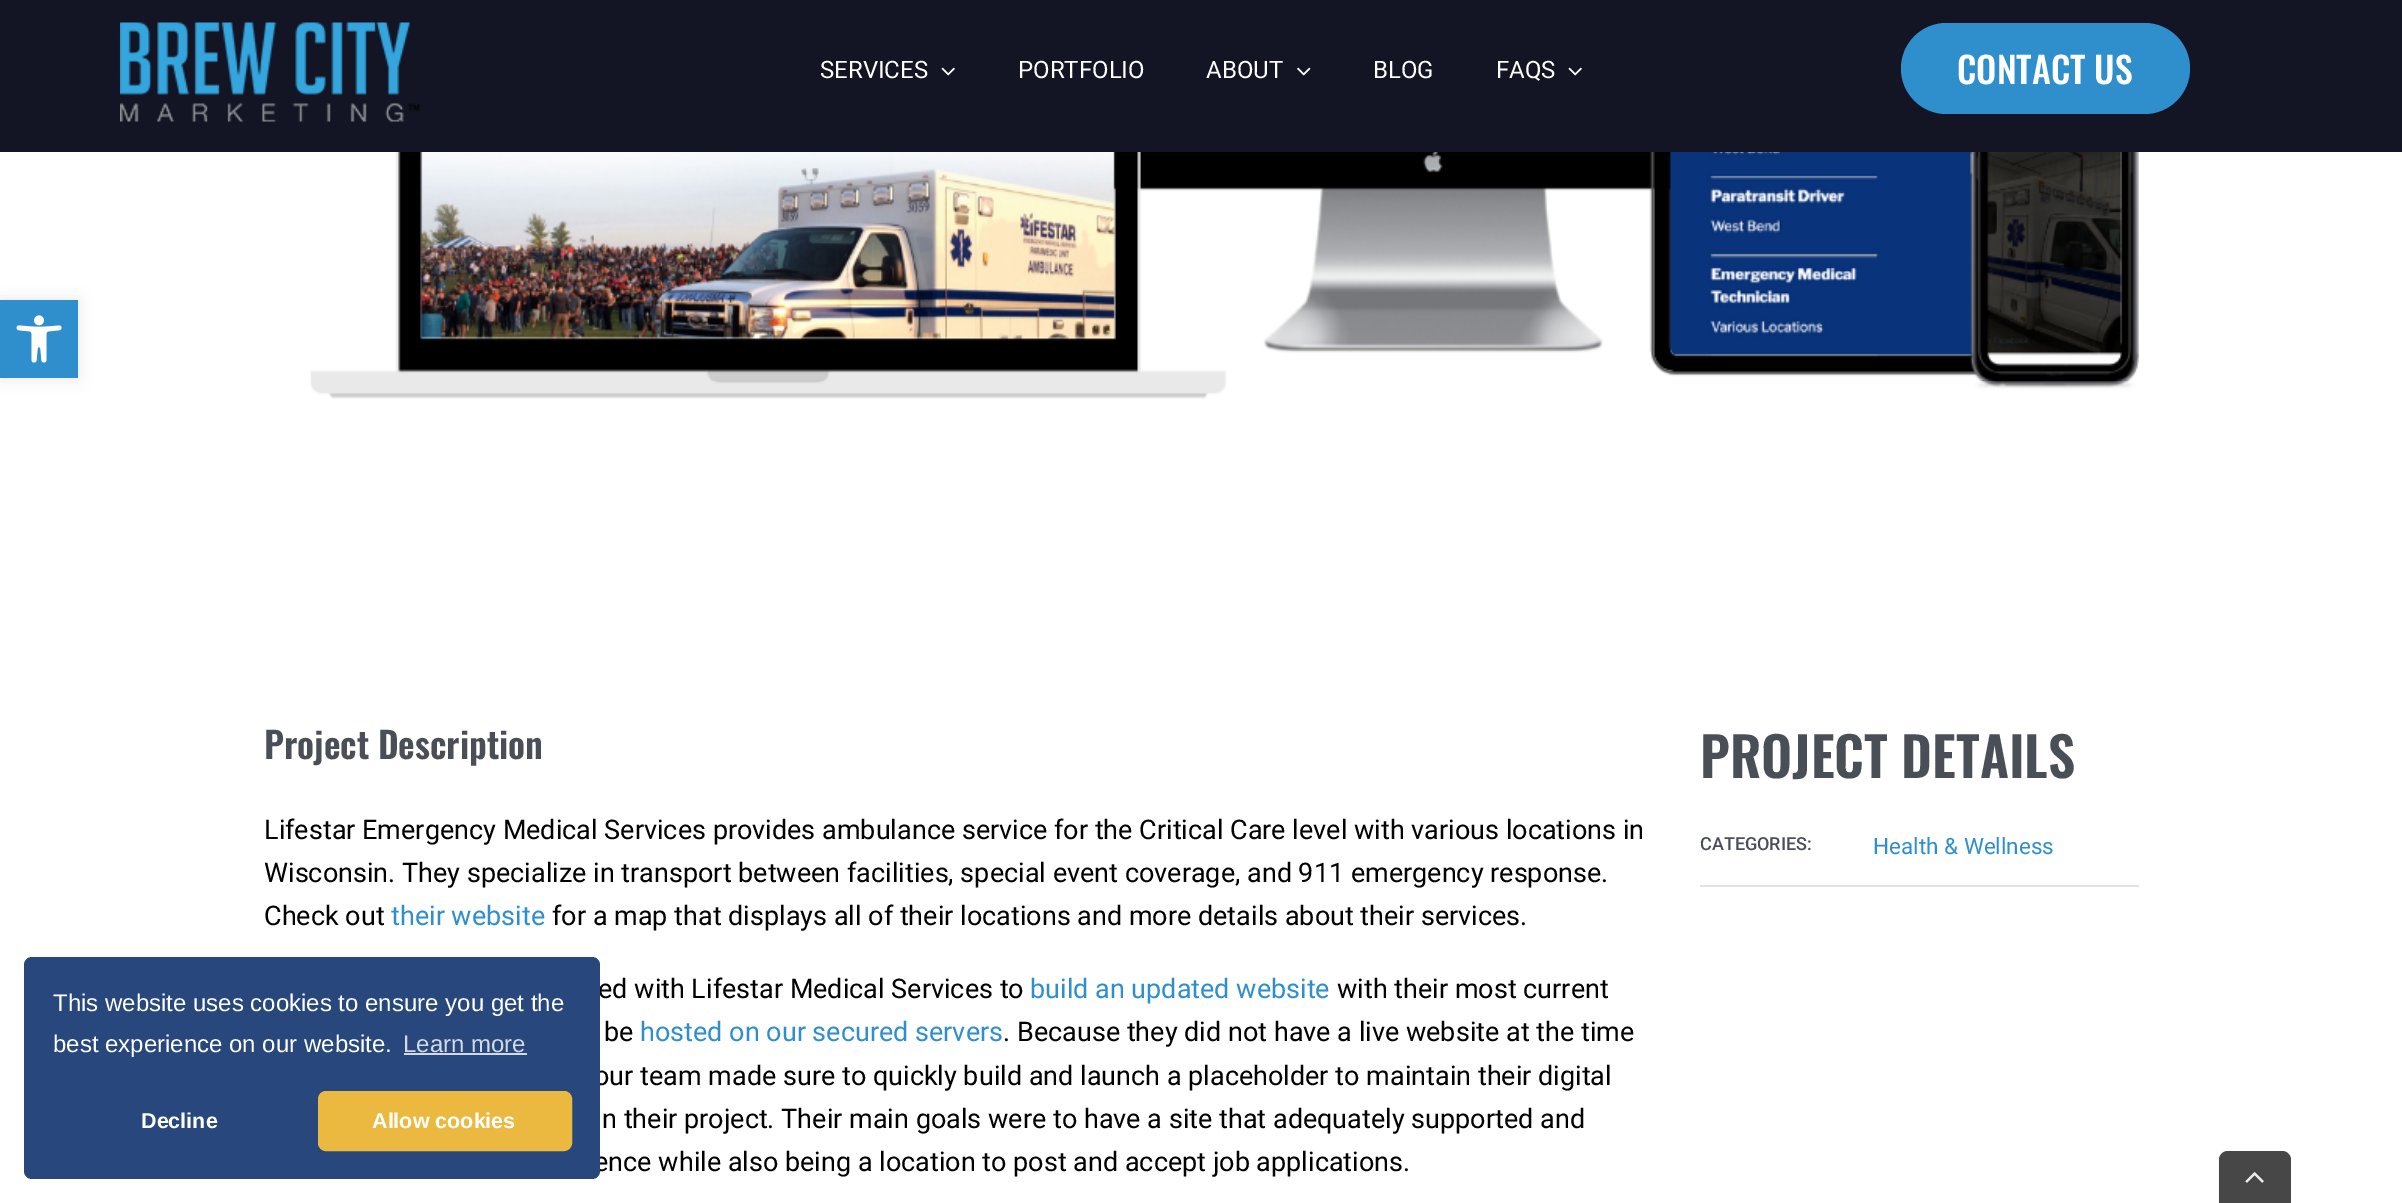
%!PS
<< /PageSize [2402 1203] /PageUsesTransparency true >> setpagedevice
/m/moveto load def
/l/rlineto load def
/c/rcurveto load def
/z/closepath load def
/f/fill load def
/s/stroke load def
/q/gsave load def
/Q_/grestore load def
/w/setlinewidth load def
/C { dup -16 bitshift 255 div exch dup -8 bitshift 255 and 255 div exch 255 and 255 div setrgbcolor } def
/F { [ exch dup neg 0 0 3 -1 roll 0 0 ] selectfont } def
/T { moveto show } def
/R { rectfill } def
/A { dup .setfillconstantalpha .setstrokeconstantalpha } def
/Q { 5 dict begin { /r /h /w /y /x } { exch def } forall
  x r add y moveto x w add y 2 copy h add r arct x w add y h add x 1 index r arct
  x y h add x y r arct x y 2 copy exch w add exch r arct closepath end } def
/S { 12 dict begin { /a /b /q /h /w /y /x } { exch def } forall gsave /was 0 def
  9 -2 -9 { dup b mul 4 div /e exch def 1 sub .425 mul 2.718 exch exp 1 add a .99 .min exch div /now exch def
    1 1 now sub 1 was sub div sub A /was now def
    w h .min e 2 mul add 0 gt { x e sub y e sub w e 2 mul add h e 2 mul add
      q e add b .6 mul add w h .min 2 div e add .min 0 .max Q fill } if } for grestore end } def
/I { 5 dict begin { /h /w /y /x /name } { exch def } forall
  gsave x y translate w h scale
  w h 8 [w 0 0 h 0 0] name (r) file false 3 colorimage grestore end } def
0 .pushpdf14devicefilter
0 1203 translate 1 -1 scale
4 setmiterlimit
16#FFFFFF C
0 0 2402 1203 R
16#000000 C
0 300 78 78 0 7.5 .1 S
16#2E8FCC C
0 300 78 78 R
(1.rgb) 16 315 46 48 I
16#131424 C
0 0 2402 152 R
(2.rgb) 120 22 300 100 I
/Roboto-Regular 24 F
16#FFFFFF C
(SERVICES) 820 78 T
(3.rgb) 941 67 14 9 I
(PORTFOLIO) 1018 78 T
(ABOUT) 1206 78 T
(4.rgb) 1297 67 14 9 I
(BLOG) 1373 78 T
(FAQS) 1496 78 T
(3.rgb) 1568 67 14 9 I
16#2E8FCC C
1901 23 289 91 45.5 Q f
/Oswald-Medium 36 F
16#FFFFFF C
(CONTACT US) 1957 84 T
(5.rgb) 310 152 1829 247 I
/Oswald-SemiBold 36 F
16#4A4E57 C
(Project Description) 264 759 T
/Roboto-Regular 27 F
16#000000 C
(Lifestar Emergency Medical Services provides ambulance service for the Critical Care level with various locations in) 264 839 T
(Wisconsin. They specialize in transport between facilities, special event coverage, and 911 emergency response.) 264 882 T
(Check out) 264 925 T
16#2E8FCC C
(their website) 391 925 T
16#000000 C
(for a map that displays all of their locations and more details about their services.) 552 925 T
(ed with Lifestar Medical Services to) 598 998 T
16#2E8FCC C
(build an updated website) 1030 998 T
16#000000 C
(with their most current) 1337 998 T
(be) 604 1041 T
16#2E8FCC C
(hosted on our secured servers) 640 1041 T
16#000000 C
(. Because they did not have a live website at the time) 1003 1041 T
(our team made sure to quickly build and launch a placeholder to maintain their digital) 594 1085 T
(n their project. Their main goals were to have a site that adequately supported and) 602 1128 T
(ence while also being a location to post and accept job applications.) 594 1171 T
/Oswald-SemiBold 54 F
16#4A4E57 C
(PROJECT DETAILS) 1700 778 T
16#E2E2E2 C
1700 885 439 2 R
/Roboto-Medium 18 F
16#4A4E57 C
(CATEGORIES:) 1700 850 T
/Roboto-Regular 22.5 F
16#2E8FCC C
(Health & Wellness) 1873 854 T
16#28477C C
24 957 576 222 8 Q f
/LiberationSans-Regular 24 F
16#FFFFFF C
(This website uses cookies to ensure you get the) 53 1011 T
(best experience on our website.) 53 1052 T
16#D4DAE5 C
(Learn more) 403 1052 T
404 1053 123 2 R
/LiberationSans-Bold 21.5 F
16#FFFFFF C
(Decline) 141 1128 T
16#ECB940 C
319.5 1092.5 251 57 6.5 Q q f Q_
3 w
s
16#FFFFFF C
(Allow cookies) 372 1128 T
16#474747 C
2228 1151 m 54 0 l 5 0 9 4 9 9 c 0 43 l -72 0 l 0 -43 l 0 -5 4 -9 9 -9 c z f
(6.rgb) 2245 1172 19 11 I
.poppdf14devicefilter showpage
